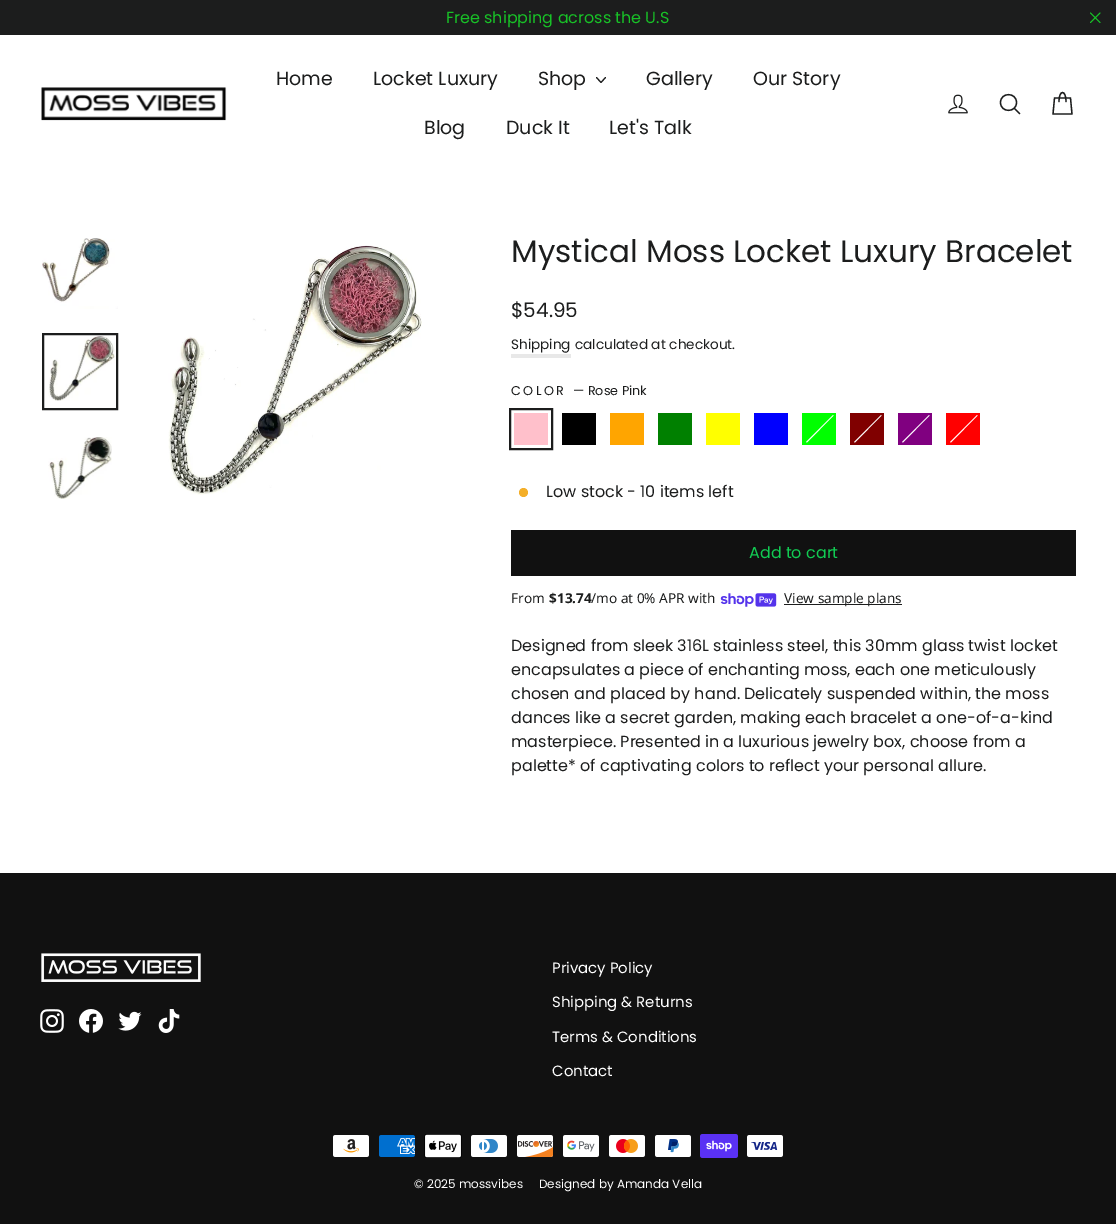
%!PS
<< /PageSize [1116 1224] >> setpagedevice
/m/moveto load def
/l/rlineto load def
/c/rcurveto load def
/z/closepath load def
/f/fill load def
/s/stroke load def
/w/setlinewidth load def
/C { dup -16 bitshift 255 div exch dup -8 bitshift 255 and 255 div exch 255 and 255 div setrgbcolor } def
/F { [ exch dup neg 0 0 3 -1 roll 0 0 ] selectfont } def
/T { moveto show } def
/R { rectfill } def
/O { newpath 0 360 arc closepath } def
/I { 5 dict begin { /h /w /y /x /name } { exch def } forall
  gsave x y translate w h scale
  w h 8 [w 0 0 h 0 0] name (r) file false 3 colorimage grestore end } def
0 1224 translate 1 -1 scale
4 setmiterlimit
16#FFFFFF C
0 0 1116 1224 R
16#1C1D1D C
0 0 1116 35 R
/Poppins-Regular 16 F
16#18C127 C
(Free shipping across the U.S) 446 23 T
1 setlinecap
1 setlinejoin
1090.5 13 m 9.5 9.5 l 1100 13 m -9.5 9.5 l s
(1.rgb) 41 87 186 34 I
/Poppins-Regular 19 F
16#1C1D1D C
(Home) 276 85 T
(Locket Luxury) 373 85 T
(Shop) 538 85 T
1.1 w
596.5 77.5 m 4.5 5 l 4.5 -5 l s
(Gallery) 646 85 T
(Our Story) 753 85 T
(Blog) 424 134 T
(Duck It) 506 134 T
(Let's Talk) 609 134 T
(2.rgb) 948 94 20 20 I
1.3 w
1016.5 102.5 m 0 10.5 -16 10.5 -16 0 c 0 -10.5 16 -10.5 16 0 c z 1019.5 113.5 m -5 -5 l s
1059 101.5 m 0 -12 7 -12 7 0 c 1054.5 98 m 16 0 l 1.5 16 l -19 0 l z s
(3.rgb) 42 238 76 71 I
(4.rgb) 48 336 67 65 I
2 w
0 setlinecap
0 setlinejoin
43 334 74 75 rectstroke
(5.rgb) 48 437 64 62 I
(6.rgb) 168 245 254 250 I
/Poppins-Regular 31 F
(Mystical Moss Locket Luxury Bracelet) 511 262 T
/Poppins-Regular 20 F
($54.95) 511 317 T
/Poppins-Regular 13.6 F
(Shipping) 511 349 T
16#E8E8E8 C
511 354 60 4 R
16#1C1D1D C
(calculated at checkout.) 575 349 T
/Poppins-Regular 12.75 F
511 395 m 2.5 0 (COLOR) ashow
(— Rose Pink) 573 395 T
510 409 42 40 rectstroke
16#FFC0CB C
514 413 34 32 R
16#000000 C
562 413 34 32 R
16#FFA500 C
610 413 34 32 R
16#008000 C
658 413 34 32 R
16#FFFF00 C
706 413 34 32 R
16#0000FF C
754 413 34 32 R
16#00FF00 C
802 413 34 32 R
16#FFFFFF C
833 415 m .5 .5 l -26.5 27 l -1 -.5 l z f
16#800000 C
850 413 34 32 R
16#FFFFFF C
881 415 m .5 .5 l -26.5 27 l -1 -.5 l z f
16#800080 C
898 413 34 32 R
16#FFFFFF C
929 415 m .5 .5 l -26.5 27 l -1 -.5 l z f
16#FF0000 C
946 413 34 32 R
16#FFFFFF C
977 415 m .5 .5 l -26.5 27 l -1 -.5 l z f
16#F4AF29 C
523.5 492.5 4.5 O f
/Poppins-Regular 16 F
16#1C1D1D C
(Low stock - 10 items left) 546 497 T
16#111111 C
511 530 565 46 R
16#11CC53 C
(Add to cart) 749 558 T
/NotoSans-Regular 13.6 F
16#1C1D1D C
(From) 511 603 T
/NotoSans-Bold 13.6 F
($13.74) 549 603 T
/NotoSans-Regular 13.6 F
(/mo at 0% APR with) 591 603 T
(7.rgb) 720 593 57 14 I
784 604 118 1 R
(View sample plans) 784 603 T
/Poppins-Regular 16 F
(Designed from sleek 316L stainless steel, this 30mm glass twist locket) 511 651 T
(encapsulates a piece of enchanting moss, each one meticulously) 511 675 T
(chosen and placed by hand. Delicately suspended within, the moss) 511 699 T
(dances like a secret garden, making each bracelet a one-of-a-kind) 511 723 T
(masterpiece. Presented in a luxurious jewelry box, choose from a) 511 747 T
(palette* of captivating colors to reflect your personal allure.) 511 771 T
16#111111 C
0 873 1116 351 R
(8.rgb) 41 953 160 29 I
(9.rgb) 40 1009 24 24 I
(10.rgb) 79 1009 24 24 I
(11.rgb) 118 1011 24 20 I
(12.rgb) 158 1009 22 24 I
/Poppins-Regular 14.9 F
16#FFFFFF C
(Privacy Policy) 552 973 T
(Shipping & Returns) 552 1007 T
(Terms & Conditions) 552 1042 T
(Contact) 552 1076 T
(13.rgb) 333 1135 36 22 I
(14.rgb) 379 1135 36 22 I
(15.rgb) 424 1134 38 24 I
(16.rgb) 471 1135 36 22 I
(17.rgb) 517 1135 36 22 I
(18.rgb) 563 1135 36 22 I
(19.rgb) 609 1135 36 22 I
(20.rgb) 655 1135 36 22 I
(21.rgb) 700 1134 38 24 I
(22.rgb) 747 1135 36 22 I
/Poppins-Regular 12 F
(© 2025 mossvibes) 414 1188 T
(Designed by Amanda Vella) 539 1188 T
showpage
